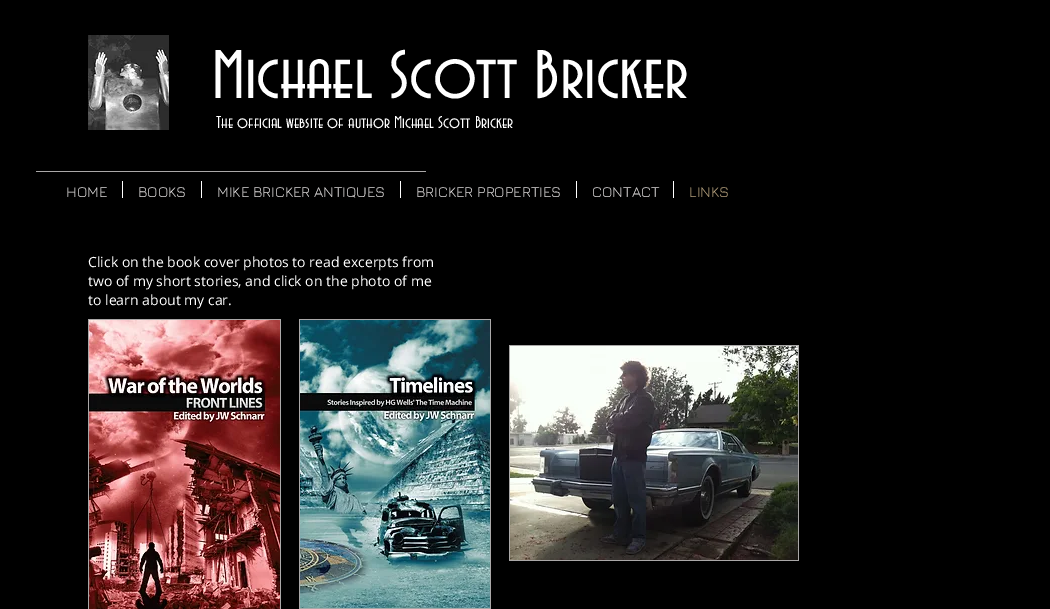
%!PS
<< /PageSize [1050 609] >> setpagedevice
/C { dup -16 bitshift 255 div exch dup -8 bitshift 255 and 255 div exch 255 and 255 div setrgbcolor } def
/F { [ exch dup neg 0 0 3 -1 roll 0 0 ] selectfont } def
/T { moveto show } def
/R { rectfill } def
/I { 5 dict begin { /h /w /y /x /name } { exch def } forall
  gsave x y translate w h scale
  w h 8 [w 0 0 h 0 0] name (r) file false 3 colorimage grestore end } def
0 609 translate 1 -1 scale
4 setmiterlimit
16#000000 C
0 0 1050 609 R
(1.rgb) 88 35 81 95 I
/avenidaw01-Regular 72 F
16#FFFFFF C
(Michael Scott Bricker) 212 98 T
/avenidaw01-Regular 18 F
(The official website of author Michael Scott Bricker) 216 128 T
16#AAA8A8 C
36 171 390 1 R
/Jura-Regular 15 F
16#E0DDDD C
(HOME) 66 197 T
16#FFFFFF C
122 181 1 17 R
16#E0DDDD C
(BOOKS) 138 197 T
16#FFFFFF C
201 181 1 17 R
16#E0DDDD C
(MIKE BRICKER ANTIQUES) 217 197 T
16#FFFFFF C
400 181 1 17 R
16#E0DDDD C
(BRICKER PROPERTIES) 416 197 T
16#FFFFFF C
576 181 1 17 R
16#E0DDDD C
(CONTACT) 592 197 T
16#FFFFFF C
673 181 1 17 R
16#B7A27E C
(LINKS) 689 197 T
/OpenSans-Regular 14 F
16#FFFFFF C
(Click on the book cover photos to read excerpts from) 88 267 T
(two of my short stories, and click on the photo of me) 88 286 T
(to learn about my car.) 88 305 T
16#AAA8A8 C
88 319 193 290 R
(2.rgb) 89 320 191 289 I
299 319 192 290 R
(3.rgb) 300 320 190 288 I
509 345 290 216 R
(4.rgb) 510 346 288 214 I
showpage
